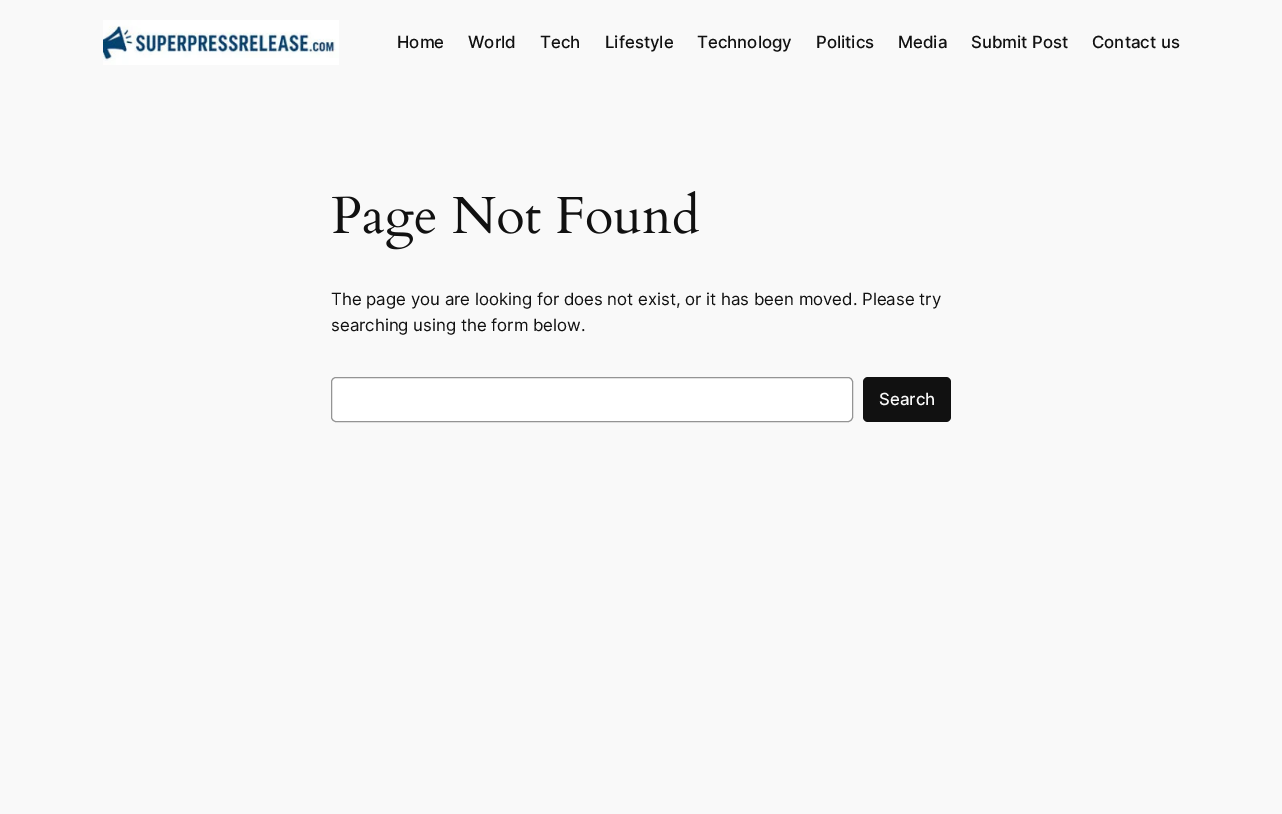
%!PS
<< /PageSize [1282 814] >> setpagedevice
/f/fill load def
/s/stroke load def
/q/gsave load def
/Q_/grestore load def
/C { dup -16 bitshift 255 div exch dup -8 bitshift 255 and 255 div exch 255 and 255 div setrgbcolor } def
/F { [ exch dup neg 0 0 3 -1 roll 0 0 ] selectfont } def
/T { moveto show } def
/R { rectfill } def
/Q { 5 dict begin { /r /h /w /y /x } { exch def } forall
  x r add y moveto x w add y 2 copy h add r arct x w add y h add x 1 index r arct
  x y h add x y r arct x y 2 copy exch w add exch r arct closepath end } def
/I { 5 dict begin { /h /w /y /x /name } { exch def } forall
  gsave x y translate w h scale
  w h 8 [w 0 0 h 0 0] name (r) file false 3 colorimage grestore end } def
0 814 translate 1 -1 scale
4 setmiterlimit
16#F9F9F9 C
0 0 1282 814 R
(1.rgb) 103 20 236 45 I
/Inter-Medium 16.8 F
16#111111 C
(Home) 397 48 T
(World) 468 48 T
(Tech) 540 48 T
(Lifestyle) 605 48 T
(Technology) 697 48 T
(Politics) 816 48 T
(Media) 898 48 T
(Submit Post) 971 48 T
(Contact us) 1092 48 T
(2.rgb) 332 191 367 59 I
/Inter-Regular 16.8 F
(The page you are looking for does not exist, or it has been moved. Please try) 331 305 T
(searching using the form below.) 331 331 T
16#FFFFFF C
331.5 377.5 521 44 4.5 Q q f Q_
16#949494 C
s
16#111111 C
863 377 88 45 5 Q f
/Inter-Medium 16.8 F
16#F9F9F9 C
(Search) 879 405 T
showpage
